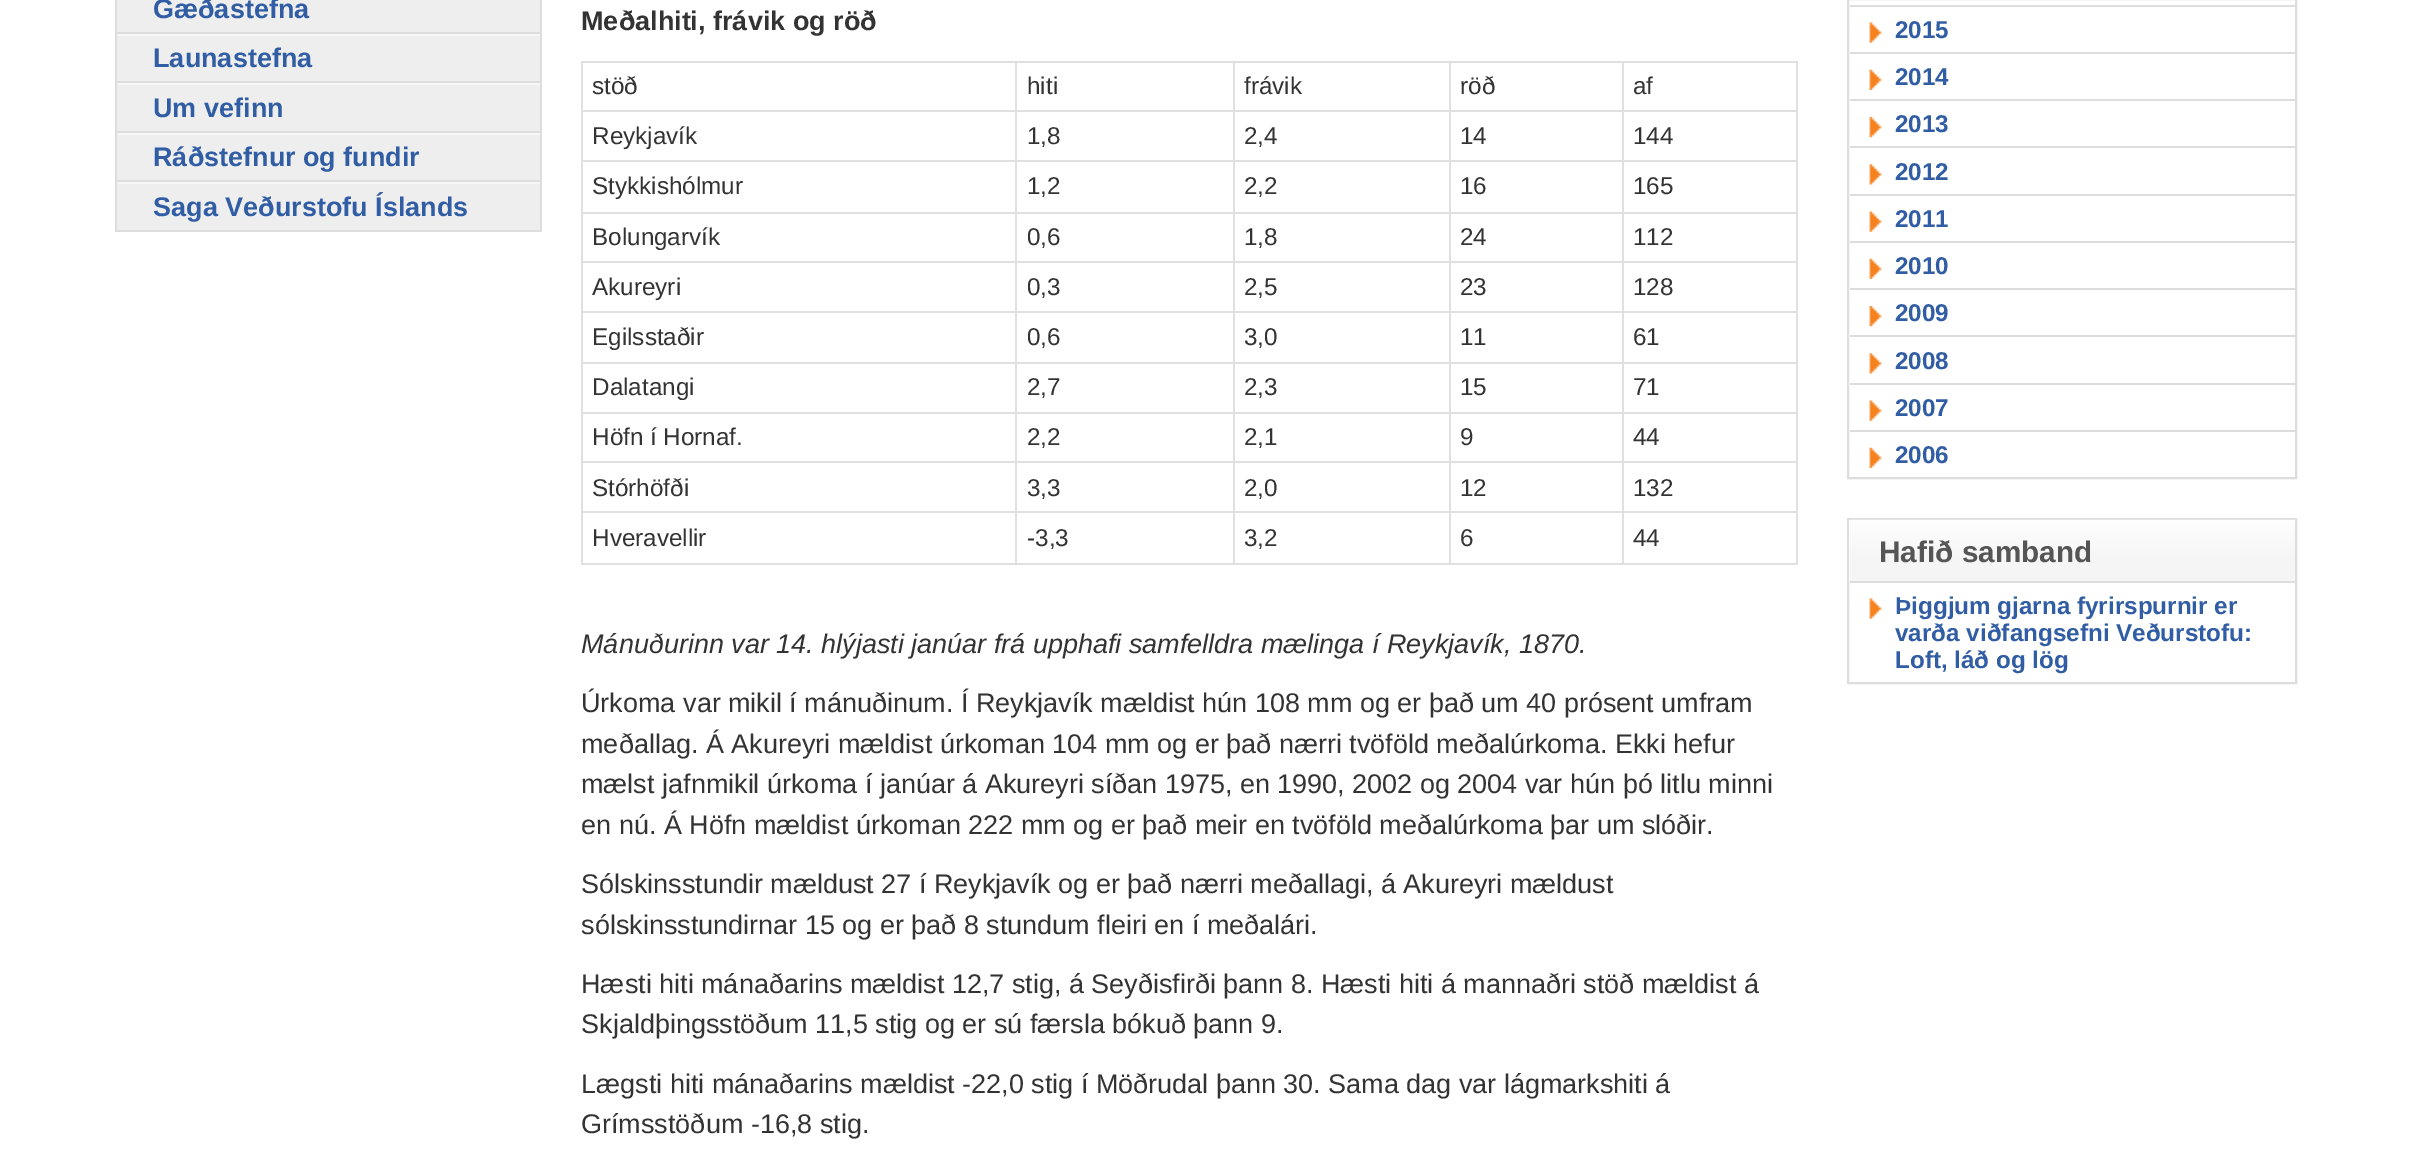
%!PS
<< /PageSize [2412 1172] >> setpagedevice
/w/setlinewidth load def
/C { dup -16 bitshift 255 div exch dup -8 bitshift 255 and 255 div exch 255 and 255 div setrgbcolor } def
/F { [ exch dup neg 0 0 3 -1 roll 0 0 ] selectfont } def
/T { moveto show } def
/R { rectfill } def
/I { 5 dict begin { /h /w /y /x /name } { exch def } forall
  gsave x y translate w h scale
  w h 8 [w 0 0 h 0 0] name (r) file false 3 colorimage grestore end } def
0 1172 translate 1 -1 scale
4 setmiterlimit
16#FFFFFF C
0 0 2412 1172 R
16#EEEEEE C
117 0 423 230 R
16#DDDDDD C
540 0 2 232 R
115 0 2 232 R
117 32 423 2 R
/LiberationSans-Bold 27 F
16#305DA3 C
(Gæðastefna) 153 18 T
16#F6F6F6 C
117 34 423 2 R
16#DDDDDD C
117 81 423 2 R
16#305DA3 C
(Launastefna) 153 67 T
16#F6F6F6 C
117 83 423 2 R
16#DDDDDD C
117 131 423 2 R
16#305DA3 C
(Um vefinn) 153 117 T
16#F6F6F6 C
117 133 423 2 R
16#DDDDDD C
117 180 423 2 R
16#305DA3 C
(Ráðstefnur og fundir) 153 166 T
16#F6F6F6 C
117 182 423 2 R
16#DDDDDD C
117 230 423 2 R
16#305DA3 C
(Saga Veðurstofu Íslands) 153 216 T
16#333333 C
(Meðalhiti, frávik og röð) 581 30 T
16#E0E0E0 C
581 61 1217 2 R
1796 61 2 504 R
581 563 1217 2 R
581 61 2 504 R
/LiberationSans-Regular 24.25 F
16#333333 C
(stöð) 592 94 T
16#E0E0E0 C
1622 110 176 2 R
1622 160 176 2 R
1622 212 176 2 R
1622 261 176 2 R
1622 311 176 2 R
1622 362 176 2 R
1622 412 176 2 R
1622 461 176 2 R
1622 511 176 2 R
1622 511 2 54 R
1449 511 176 2 R
1622 461 2 52 R
1449 461 176 2 R
1622 412 2 52 R
1449 412 176 2 R
1622 362 2 52 R
1449 362 176 2 R
1622 311 2 54 R
1449 311 176 2 R
1622 261 2 52 R
1449 261 176 2 R
1622 212 2 51 R
1449 212 176 2 R
1622 160 2 54 R
1449 160 176 2 R
1622 110 2 52 R
1449 110 176 2 R
1449 511 2 54 R
1233 511 218 2 R
1449 461 2 52 R
1233 461 218 2 R
1449 412 2 52 R
1233 412 218 2 R
1449 362 2 52 R
1233 362 218 2 R
1449 311 2 54 R
1233 311 218 2 R
1449 261 2 52 R
1233 261 218 2 R
1449 212 2 51 R
1233 212 218 2 R
1449 160 2 54 R
1233 160 218 2 R
1449 110 2 52 R
1233 110 218 2 R
1233 511 2 54 R
1015 511 220 2 R
1233 461 2 52 R
1015 461 220 2 R
1233 412 2 52 R
1015 412 220 2 R
1233 362 2 52 R
1015 362 220 2 R
1233 311 2 54 R
1015 311 220 2 R
1233 261 2 52 R
1015 261 220 2 R
1233 212 2 51 R
1015 212 220 2 R
1233 160 2 54 R
1015 160 220 2 R
1233 110 2 52 R
1015 110 220 2 R
1015 511 2 54 R
581 511 436 2 R
1015 461 2 52 R
581 461 436 2 R
1015 412 2 52 R
581 412 436 2 R
1015 362 2 52 R
581 362 436 2 R
1015 311 2 54 R
581 311 436 2 R
1015 261 2 52 R
581 261 436 2 R
1015 212 2 51 R
581 212 436 2 R
1015 160 2 54 R
581 160 436 2 R
1015 110 2 52 R
581 110 436 2 R
1015 61 2 52 R
16#333333 C
(hiti) 1027 94 T
16#E0E0E0 C
1233 61 2 52 R
16#333333 C
(frávik) 1244 94 T
16#E0E0E0 C
1449 61 2 52 R
16#333333 C
(röð) 1460 94 T
16#E0E0E0 C
1622 61 2 52 R
16#333333 C
(af) 1633 94 T
(Reykjavík) 592 144 T
(1,8) 1027 144 T
(2,4) 1244 144 T
(14) 1460 144 T
(144) 1633 144 T
(Stykkishólmur) 592 194 T
(1,2) 1027 194 T
(2,2) 1244 194 T
(16) 1460 194 T
(165) 1633 194 T
(Bolungarvík) 592 245 T
(0,6) 1027 245 T
(1,8) 1244 245 T
(24) 1460 245 T
(112) 1633 245 T
(Akureyri) 592 295 T
(0,3) 1027 295 T
(2,5) 1244 295 T
(23) 1460 295 T
(128) 1633 295 T
(Egilsstaðir) 592 345 T
(0,6) 1027 345 T
(3,0) 1244 345 T
(11) 1460 345 T
(61) 1633 345 T
(Dalatangi) 592 395 T
(2,7) 1027 395 T
(2,3) 1244 395 T
(15) 1460 395 T
(71) 1633 395 T
(Höfn í Hornaf.) 592 445 T
(2,2) 1027 445 T
(2,1) 1244 445 T
(9) 1460 445 T
(44) 1633 445 T
(Stórhöfði) 592 496 T
(3,3) 1027 496 T
(2,0) 1244 496 T
(12) 1460 496 T
(132) 1633 496 T
(Hveravellir) 592 546 T
(-3,3) 1027 546 T
(3,2) 1244 546 T
(6) 1460 546 T
(44) 1633 546 T
/LiberationSans-Italic 27 F
(Mánuðurinn var 14. hlýjasti janúar frá upphafi samfelldra mælinga í Reykjavík, 1870.) 581 653 T
/LiberationSans-Regular 27 F
(Úrkoma var mikil í mánuðinum. Í Reykjavík mældist hún 108 mm og er það um 40 prósent umfram) 581 712 T
(meðallag. Á Akureyri mældist úrkoman 104 mm og er það nærri tvöföld meðalúrkoma. Ekki hefur) 581 753 T
(mælst jafnmikil úrkoma í janúar á Akureyri síðan 1975, en 1990, 2002 og 2004 var hún þó litlu minni) 581 793 T
(en nú. Á Höfn mældist úrkoman 222 mm og er það meir en tvöföld meðalúrkoma þar um slóðir.) 581 834 T
(Sólskinsstundir mældust 27 í Reykjavík og er það nærri meðallagi, á Akureyri mældust) 581 893 T
(sólskinsstundirnar 15 og er það 8 stundum fleiri en í meðalári.) 581 934 T
(Hæsti hiti mánaðarins mældist 12,7 stig, á Seyðisfirði þann 8. Hæsti hiti á mannaðri stöð mældist á) 581 993 T
(Skjaldþingsstöðum 11,5 stig og er sú færsla bókuð þann 9.) 581 1033 T
(Lægsti hiti mánaðarins mældist -22,0 stig í Möðrudal þann 30. Sama dag var lágmarkshiti á) 581 1093 T
(Grímsstöðum -16,8 stig.) 581 1133 T
16#DDDDDD C
2 w
1848 -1 448 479 rectstroke
(1.rgb) 1869 22 13 21 I
1850 5 445 2 R
/LiberationSans-Bold 24.25 F
16#305DA3 C
(2015) 1895 38 T
(2.rgb) 1869 69 13 21 I
16#DDDDDD C
1850 52 445 2 R
16#305DA3 C
(2014) 1895 85 T
(3.rgb) 1869 117 13 21 I
16#DDDDDD C
1850 99 445 2 R
16#305DA3 C
(2013) 1895 132 T
(4.rgb) 1869 164 13 21 I
16#DDDDDD C
1850 146 445 2 R
16#305DA3 C
(2012) 1895 180 T
(1.rgb) 1869 211 13 21 I
16#DDDDDD C
1850 194 445 2 R
16#305DA3 C
(2011) 1895 227 T
(2.rgb) 1869 258 13 21 I
16#DDDDDD C
1850 241 445 2 R
16#305DA3 C
(2010) 1895 274 T
(3.rgb) 1869 306 13 21 I
16#DDDDDD C
1850 288 445 2 R
16#305DA3 C
(2009) 1895 321 T
(4.rgb) 1869 353 13 21 I
16#DDDDDD C
1850 335 445 2 R
16#305DA3 C
(2008) 1895 369 T
(5.rgb) 1869 400 13 21 I
16#DDDDDD C
1850 383 445 2 R
16#305DA3 C
(2007) 1895 416 T
(2.rgb) 1869 447 13 21 I
16#DDDDDD C
1850 430 445 2 R
16#305DA3 C
(2006) 1895 463 T
16#DDDDDD C
1848 519 448 164 rectstroke
16#F5F5F5 C
1850 580 445 1 R
(6.rgb) 1849 519 446 61 I
/LiberationSans-Bold 29.75 F
16#555555 C
(Hafið samband) 1879 562 T
(1.rgb) 1869 598 13 21 I
16#DDDDDD C
1850 581 445 2 R
/LiberationSans-Bold 24.25 F
16#305DA3 C
(Þiggjum gjarna fyrirspurnir er) 1895 614 T
(varða viðfangsefni Veðurstofu:) 1895 641 T
(Loft, láð og lög) 1895 668 T
showpage
